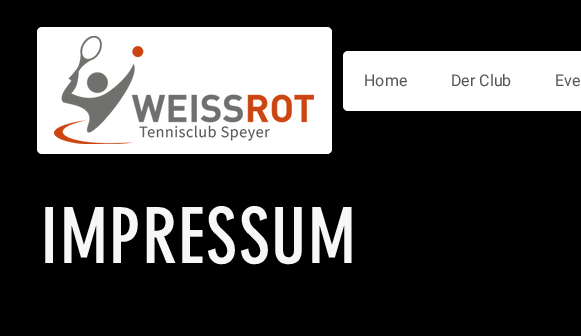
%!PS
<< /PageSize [581 336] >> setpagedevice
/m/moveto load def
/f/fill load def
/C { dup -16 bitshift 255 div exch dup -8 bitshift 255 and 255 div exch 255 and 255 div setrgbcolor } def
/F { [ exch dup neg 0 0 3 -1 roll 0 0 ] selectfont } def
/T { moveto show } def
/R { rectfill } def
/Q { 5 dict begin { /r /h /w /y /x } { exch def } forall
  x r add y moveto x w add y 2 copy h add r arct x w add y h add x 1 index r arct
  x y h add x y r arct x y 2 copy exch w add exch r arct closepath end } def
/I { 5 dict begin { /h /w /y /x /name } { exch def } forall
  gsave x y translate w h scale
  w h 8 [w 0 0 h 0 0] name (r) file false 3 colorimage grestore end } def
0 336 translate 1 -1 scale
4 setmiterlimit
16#000000 C
0 0 581 336 R
16#FFFFFF C
37 27 295 127 5 Q f
(1.rgb) 54 36 260 108 I
343 51 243 60 5 Q f
/Roboto-Regular 16 F
16#575757 C
(Home) 364 86 T
(Der Club) 451 86 T
(Eve) 555 86 T
/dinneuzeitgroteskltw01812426-Regular 76 F
16#F7F7F7 C
40 263 m 1.5 0 (IMPRESSUM) ashow
showpage
